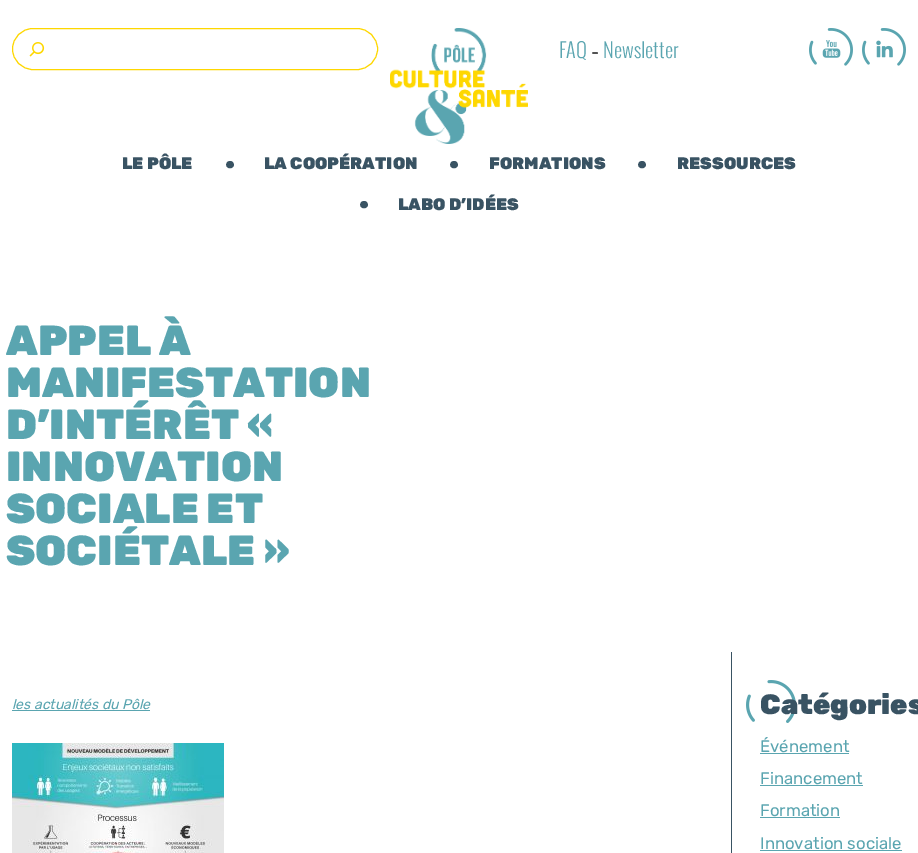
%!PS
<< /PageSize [918 853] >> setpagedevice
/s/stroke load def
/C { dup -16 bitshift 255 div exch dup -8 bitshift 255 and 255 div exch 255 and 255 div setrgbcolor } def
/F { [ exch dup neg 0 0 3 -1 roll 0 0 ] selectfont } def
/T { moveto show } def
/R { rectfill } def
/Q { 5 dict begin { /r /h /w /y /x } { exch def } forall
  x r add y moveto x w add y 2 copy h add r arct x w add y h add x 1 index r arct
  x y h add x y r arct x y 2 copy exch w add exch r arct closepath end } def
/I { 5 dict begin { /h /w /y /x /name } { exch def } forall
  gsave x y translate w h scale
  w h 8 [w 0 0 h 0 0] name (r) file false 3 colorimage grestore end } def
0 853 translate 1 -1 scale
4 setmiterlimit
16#FFFFFF C
0 0 918 853 R
16#FED700 C
12.5 28.5 365 41 20.5 Q s
(1.rgb) 29 42 16 15 I
(2.rgb) 390 28 138 116 I
/Oswald-Light 20 F
16#5AA5B0 C
(FAQ) 559 58 T
/Rubik-Regular 16.75 F
16#141414 C
(-) 591 58 T
/Oswald-Light 20 F
16#5AA5B0 C
(Newsletter) 603 58 T
(3.rgb) 809 28 44 38 I
(4.rgb) 862 28 44 38 I
/Rubik-Black 16.75 F
16#395363 C
(LE PÔLE) 122 169 T
/Roboto-Bold 50 F
(.) 223 168 T
/Rubik-Black 16.75 F
(LA COOPÉRATION) 264 169 T
/Roboto-Bold 50 F
(.) 447 168 T
/Rubik-Black 16.75 F
(FORMATIONS) 489 169 T
/Roboto-Bold 50 F
(.) 635 168 T
/Rubik-Black 16.75 F
(RESSOURCES) 677 169 T
/Roboto-Bold 50 F
(.) 357 208 T
/Rubik-Black 16.75 F
(LABO D’IDÉES) 398 210 T
/Rubik-Black 42 F
16#5AA5B0 C
(APPEL À) 6 355 T
(MANIFESTATION) 6 397 T
(D’INTÉRÊT «) 6 439 T
(INNOVATION) 6 481 T
(SOCIALE ET) 6 523 T
(SOCIÉTALE ») 6 565 T
/Rubik-Italic 14 F
(les actualités du Pôle) 12 709 T
12 710 138 1 R
(5.rgb) 12 743 212 110 I
16#395363 C
731 652 1 201 R
(6.rgb) 746 680 50 43 I
/Rubik-Black 28 F
(Catégories) 760 714 T
/Rubik-Regular 16.75 F
16#5AA5B0 C
(Événement) 760 752 T
760 753 89 1 R
(Financement) 760 784 T
760 785 103 1 R
(Formation) 760 816 T
760 817 80 1 R
(Innovation sociale) 760 849 T
760 850 142 1 R
showpage
